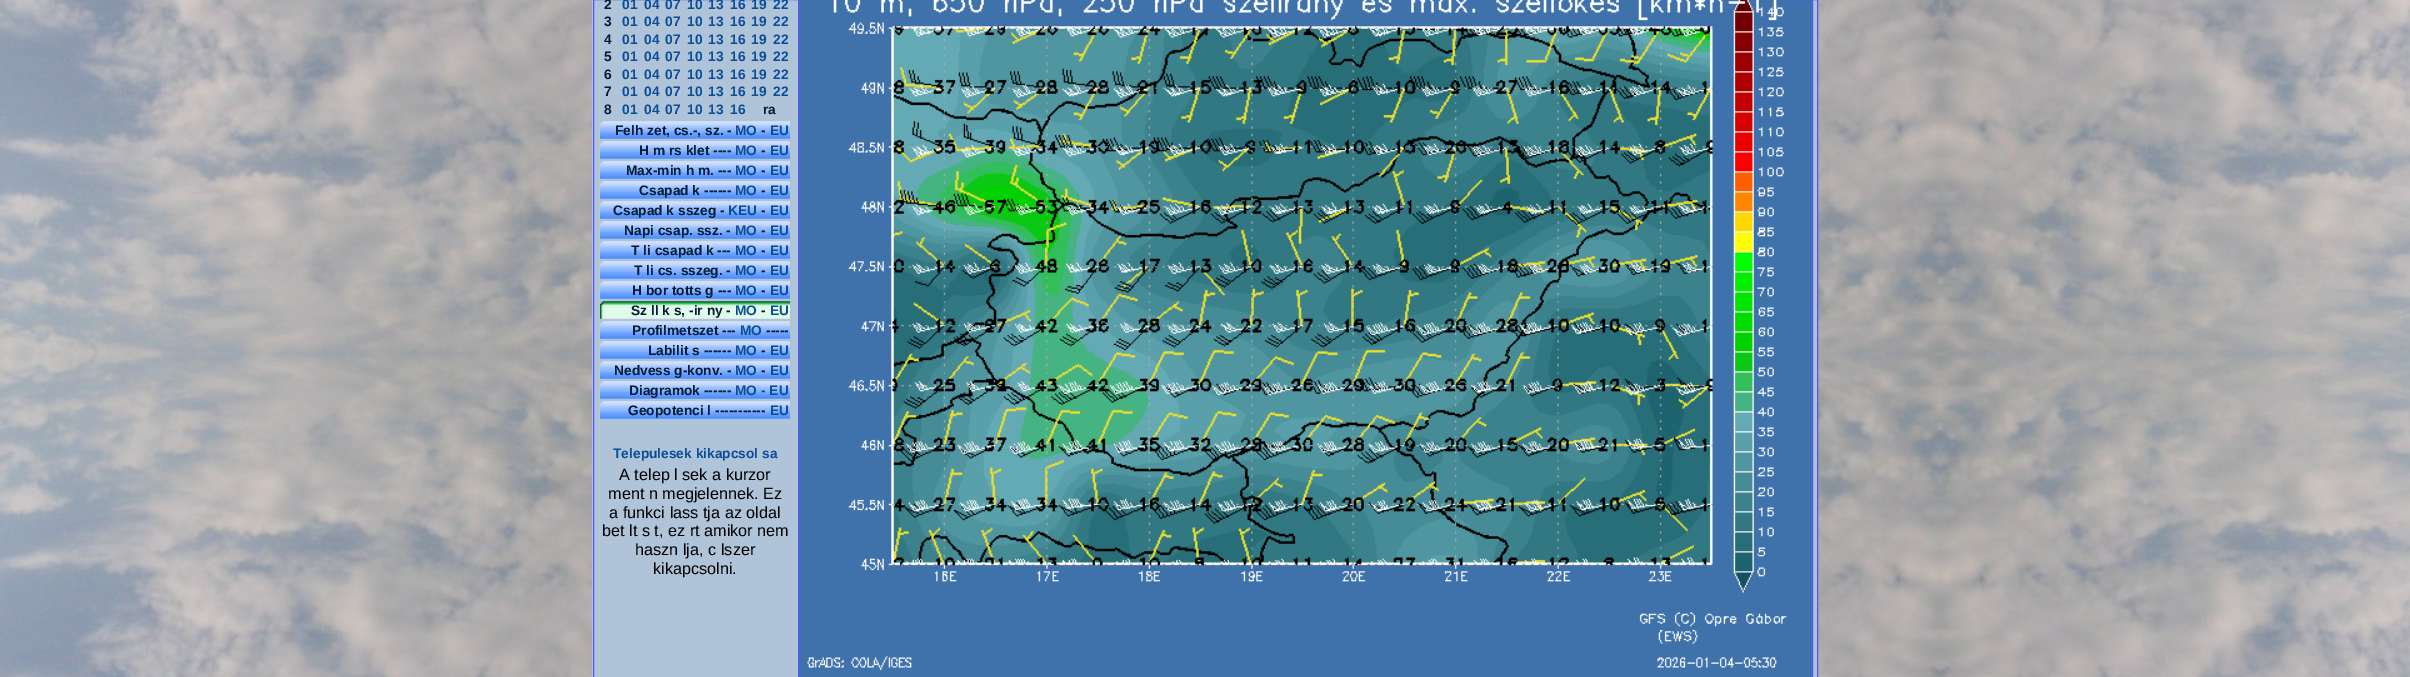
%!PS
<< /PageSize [2410 677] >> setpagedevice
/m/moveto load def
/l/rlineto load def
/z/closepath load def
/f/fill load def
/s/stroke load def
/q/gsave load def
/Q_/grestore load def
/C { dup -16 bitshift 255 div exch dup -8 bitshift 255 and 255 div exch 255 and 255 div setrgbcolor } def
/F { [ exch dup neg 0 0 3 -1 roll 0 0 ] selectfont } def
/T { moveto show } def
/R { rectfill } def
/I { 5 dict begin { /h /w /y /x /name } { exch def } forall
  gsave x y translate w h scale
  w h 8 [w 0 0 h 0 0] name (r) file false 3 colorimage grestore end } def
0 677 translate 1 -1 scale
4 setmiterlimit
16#FFFFFF C
0 0 2410 677 R
(1.rgb) 0 0 2410 677 I
16#AFC4D9 C
592 0 1225 677 R
16#5555FF C
593.5 -.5 1224 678 rectstroke
/LiberationSans-Bold 13.75 F
16#041B35 C
(2) 604 9 T
16#0B4D96 C
(01) 622 9 T
(04) 644 9 T
(07) 665 9 T
(10) 687 9 T
(13) 708 9 T
(16) 730 9 T
(19) 751 9 T
(22) 773 9 T
16#041B35 C
(3) 604 26 T
16#0B4D96 C
(01) 622 26 T
(04) 644 26 T
(07) 665 26 T
(10) 687 26 T
(13) 708 26 T
(16) 730 26 T
(19) 751 26 T
(22) 773 26 T
16#041B35 C
(4) 604 44 T
16#0B4D96 C
(01) 622 44 T
(04) 644 44 T
(07) 665 44 T
(10) 687 44 T
(13) 708 44 T
(16) 730 44 T
(19) 751 44 T
(22) 773 44 T
16#041B35 C
(5) 604 61 T
16#0B4D96 C
(01) 622 61 T
(04) 644 61 T
(07) 665 61 T
(10) 687 61 T
(13) 708 61 T
(16) 730 61 T
(19) 751 61 T
(22) 773 61 T
16#041B35 C
(6) 604 79 T
16#0B4D96 C
(01) 622 79 T
(04) 644 79 T
(07) 665 79 T
(10) 687 79 T
(13) 708 79 T
(16) 730 79 T
(19) 751 79 T
(22) 773 79 T
16#041B35 C
(7) 604 96 T
16#0B4D96 C
(01) 622 96 T
(04) 644 96 T
(07) 665 96 T
(10) 687 96 T
(13) 708 96 T
(16) 730 96 T
(19) 751 96 T
(22) 773 96 T
16#041B35 C
(8) 604 114 T
16#0B4D96 C
(01) 622 114 T
(04) 644 114 T
(07) 665 114 T
(10) 687 114 T
(13) 708 114 T
(16) 730 114 T
16#041B35 C
(ra) 763 114 T
(2.rgb) 600 121 190 18 I
(Felh zet, cs.-, sz. -) 615 135 T
16#0B4D96 C
(MO) 735 135 T
16#041B35 C
(-) 761 135 T
16#0B4D96 C
(EU) 770 135 T
(2.rgb) 600 141 190 18 I
16#041B35 C
(H m rs klet ----) 639 155 T
16#0B4D96 C
(MO) 735 155 T
16#041B35 C
(-) 761 155 T
16#0B4D96 C
(EU) 770 155 T
(2.rgb) 600 161 190 18 I
16#041B35 C
(Max-min h m. ---) 626 175 T
16#0B4D96 C
(MO) 735 175 T
16#041B35 C
(-) 761 175 T
16#0B4D96 C
(EU) 770 175 T
(2.rgb) 600 181 190 18 I
16#041B35 C
(Csapad k ------) 639 195 T
16#0B4D96 C
(MO) 735 195 T
16#041B35 C
(-) 761 195 T
16#0B4D96 C
(EU) 770 195 T
(2.rgb) 600 201 190 18 I
16#041B35 C
(Csapad k sszeg -) 613 215 T
16#0B4D96 C
(KEU) 728 215 T
16#041B35 C
(-) 761 215 T
16#0B4D96 C
(EU) 770 215 T
(2.rgb) 600 221 190 18 I
16#041B35 C
(Napi csap. ssz. -) 624 235 T
16#0B4D96 C
(MO) 735 235 T
16#041B35 C
(-) 761 235 T
16#0B4D96 C
(EU) 770 235 T
(2.rgb) 600 241 190 18 I
16#041B35 C
(T li csapad k ---) 631 255 T
16#0B4D96 C
(MO) 735 255 T
16#041B35 C
(-) 761 255 T
16#0B4D96 C
(EU) 770 255 T
(2.rgb) 600 261 190 18 I
16#041B35 C
(T li cs. sszeg. -) 634 275 T
16#0B4D96 C
(MO) 735 275 T
16#041B35 C
(-) 761 275 T
16#0B4D96 C
(EU) 770 275 T
(2.rgb) 600 281 190 18 I
16#041B35 C
(H bor totts g ---) 632 295 T
16#0B4D96 C
(MO) 735 295 T
16#041B35 C
(-) 761 295 T
16#0B4D96 C
(EU) 770 295 T
(3.rgb) 600 301 190 18 I
16#041B35 C
(Sz ll k s, -ir ny -) 631 315 T
16#0B4D96 C
(MO) 735 315 T
16#041B35 C
(-) 761 315 T
16#0B4D96 C
(EU) 770 315 T
(2.rgb) 600 321 190 18 I
16#041B35 C
(Profilmetszet ---) 632 335 T
16#0B4D96 C
(MO) 740 335 T
16#041B35 C
(-----) 766 335 T
(2.rgb) 600 341 190 18 I
(Labilit s ------) 648 355 T
16#0B4D96 C
(MO) 735 355 T
16#041B35 C
(-) 761 355 T
16#0B4D96 C
(EU) 770 355 T
(2.rgb) 600 361 190 18 I
16#041B35 C
(Nedvess g-konv. -) 614 375 T
16#0B4D96 C
(MO) 735 375 T
16#041B35 C
(-) 761 375 T
16#0B4D96 C
(EU) 770 375 T
(2.rgb) 600 381 190 18 I
16#041B35 C
(Diagramok ------) 629 395 T
16#0B4D96 C
(MO - EU) 735 395 T
(4.rgb) 600 401 190 18 I
16#041B35 C
(Geopotenci l -----------) 628 415 T
16#0B4D96 C
(EU) 770 415 T
(Telepulesek kikapcsol sa) 613 458 T
/LiberationSans-Regular 16.25 F
16#000000 C
(A telep l sek a kurzor) 619 480 T
(ment n megjelennek. Ez) 608 499 T
(a funkci lass tja az oldal) 609 518 T
(bet lt s t, ez rt amikor nem) 602 536 T
(haszn lja, c lszer) 635 555 T
(kikapcsolni.) 653 574 T
16#3F72AB C
798.5 -.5 m 1014 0 l 0 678 l -1014 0 l z q f Q_
16#5555FF C
s
(5.rgb) 807 0 980 670 I
showpage
